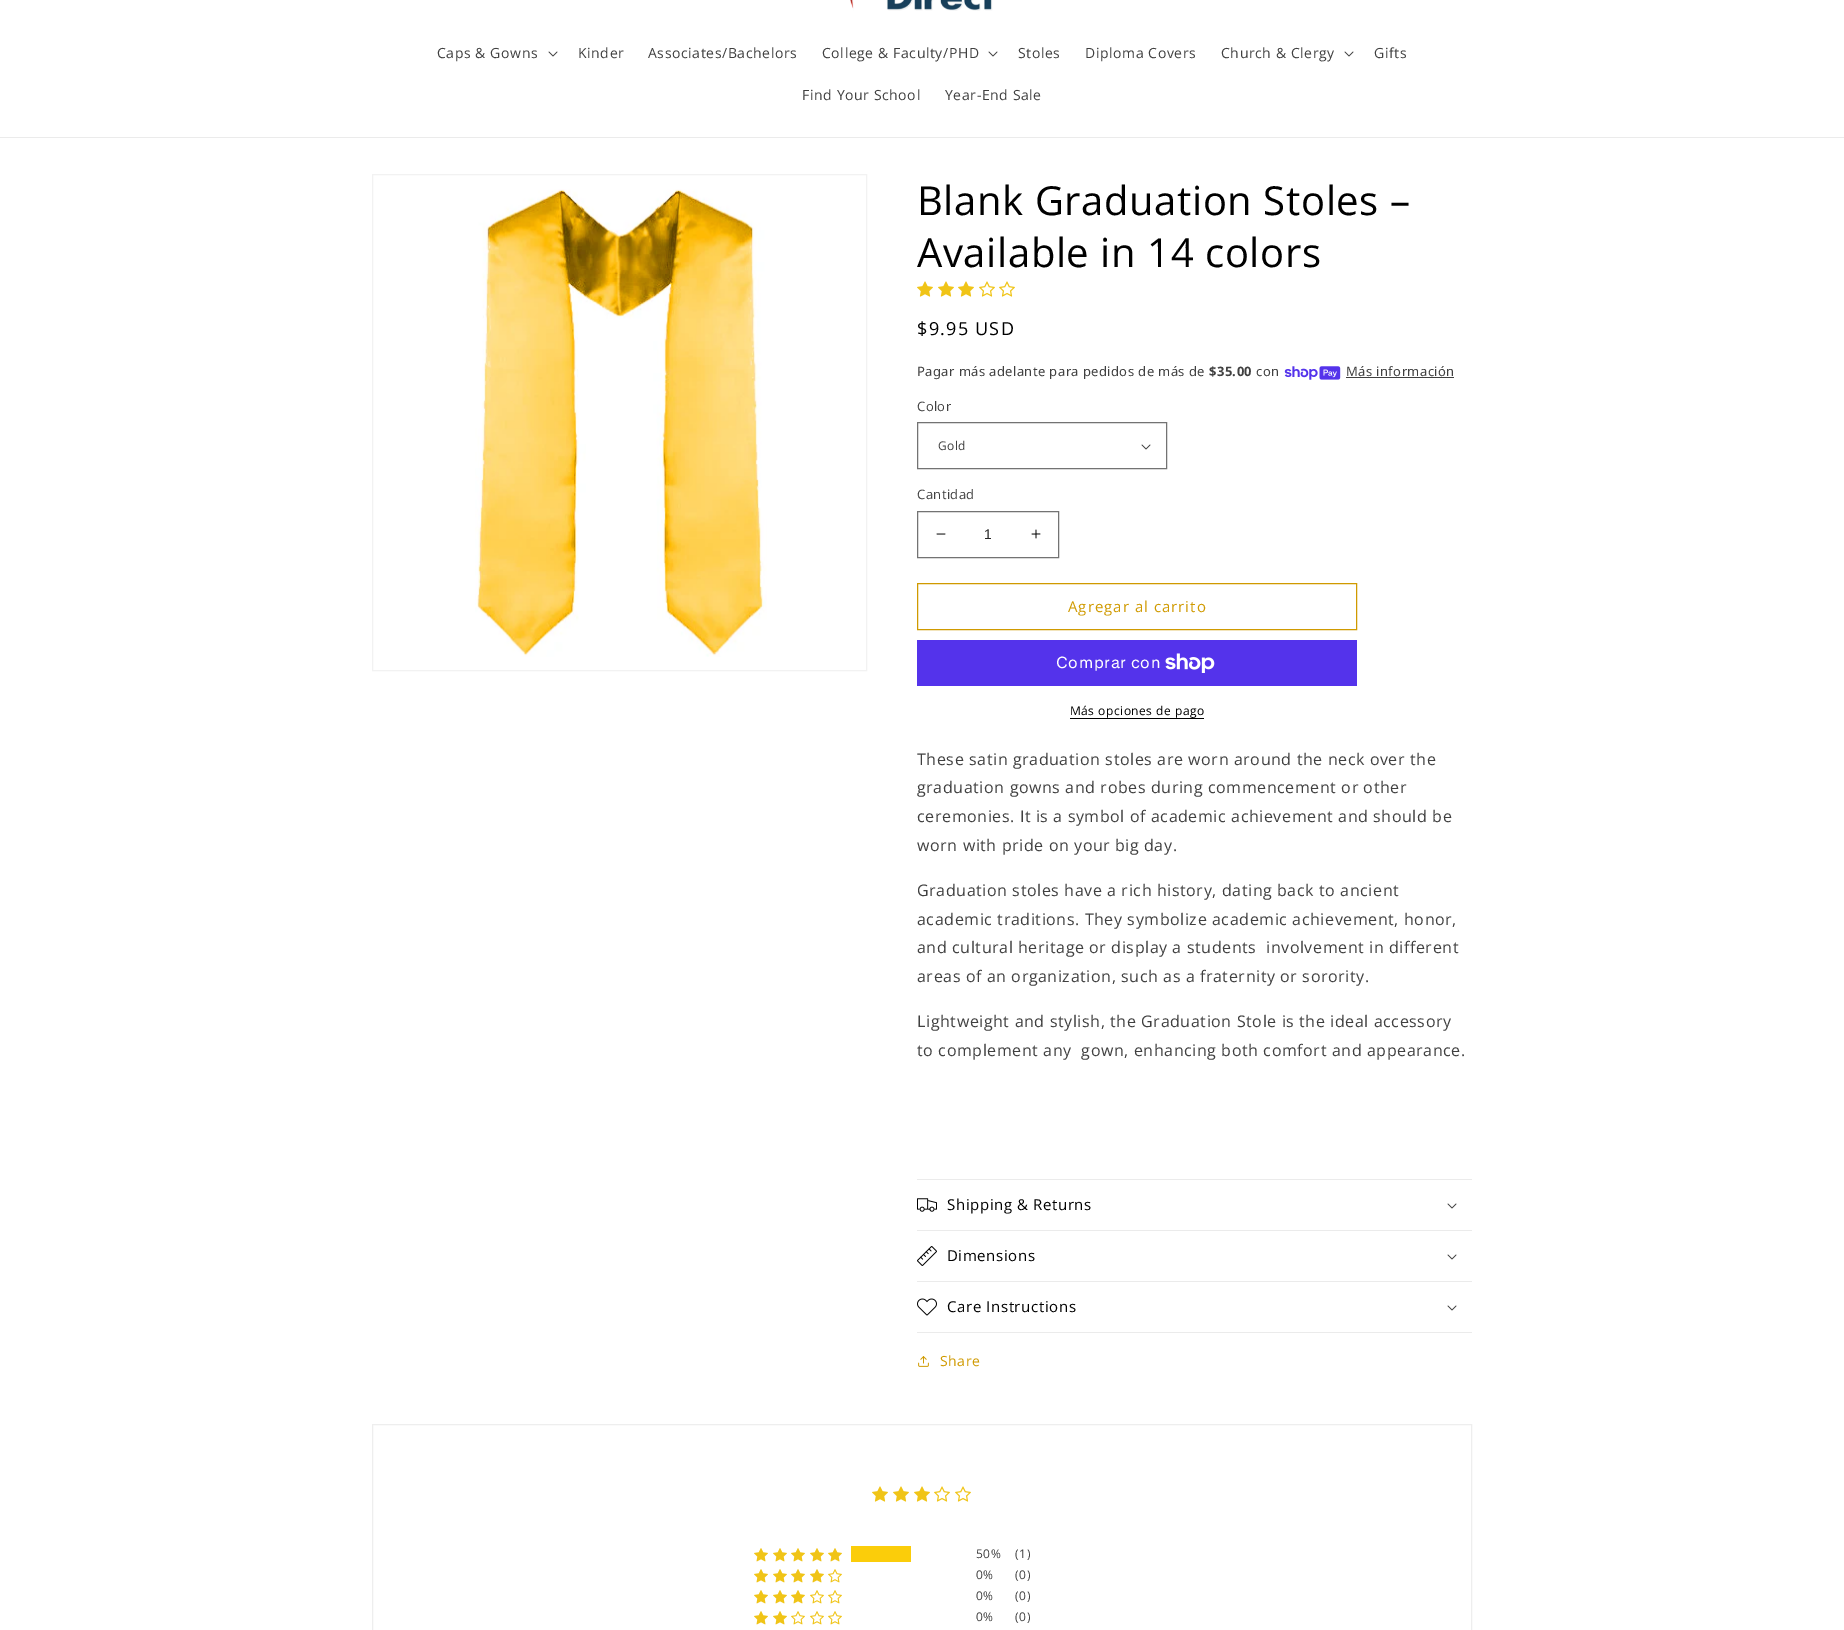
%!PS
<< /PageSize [1844 1630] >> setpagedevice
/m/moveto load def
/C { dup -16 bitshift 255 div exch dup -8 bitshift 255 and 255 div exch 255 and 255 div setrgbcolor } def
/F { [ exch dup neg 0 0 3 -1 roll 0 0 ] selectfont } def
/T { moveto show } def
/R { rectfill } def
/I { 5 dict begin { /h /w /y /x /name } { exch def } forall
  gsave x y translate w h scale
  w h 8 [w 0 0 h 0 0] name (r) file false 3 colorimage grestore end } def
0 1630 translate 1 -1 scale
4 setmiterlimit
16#FFFFFF C
0 0 1844 1630 R
16#EBEBEB C
0 137 1844 1 R
(1.rgb) 850 0 143 11 I
/OpenSans-Regular 14 F
16#404040 C
437 58 m .6 0 (Caps & Gowns) ashow
(2.rgb) 548 51 10 6 I
578 58 m .6 0 (Kinder) ashow
648 58 m .6 0 (Associates/Bachelors) ashow
822 58 m .6 0 (College & Faculty/PHD) ashow
(2.rgb) 988 51 10 6 I
1018 58 m .6 0 (Stoles) ashow
1085 58 m .6 0 (Diploma Covers) ashow
1221 58 m .6 0 (Church & Clergy) ashow
(2.rgb) 1344 51 10 6 I
1374 58 m .6 0 (Gifts) ashow
802 100 m .6 0 (Find Your School) ashow
945 100 m .6 0 (Year-End Sale) ashow
16#F2F2F2 C
372.5 174.5 494 496 rectstroke
(3.rgb) 475 189 292 468 I
/OpenSans-Regular 40 F
16#000000 C
917 215 m .6 0 (Blank Graduation Stoles –) ashow
917 267 m .6 0 (Available in 14 colors) ashow
(4.rgb) 917 281 16 16 I
(4.rgb) 938 281 16 16 I
(4.rgb) 958 281 16 16 I
(5.rgb) 979 281 16 16 I
(5.rgb) 999 281 16 16 I
/OpenSans-Regular 18 F
917 335 m 1.25 0 ($9.95 USD) ashow
/NotoSans-Regular 13 F
16#404040 C
917 376 m .4 0 (Pagar más adelante para pedidos de más de) ashow
/NotoSans-Bold 13 F
1209 376 m .4 0 ($35.00) ashow
/NotoSans-Regular 13 F
1256 376 m .4 0 (con) ashow
(6.rgb) 1284 366 57 14 I
1346 376 m .4 0 (Más información) ashow
1346 377 108 1 R
/OpenSans-Regular 13 F
917 411 m .4 0 (Color) ashow
(2.rgb) 1141 444 10 6 I
16#737373 C
917.5 422.5 249 46 rectstroke
/OpenSans-Regular 12 F
16#404040 C
938 450 m .4 0 (Gold) ashow
/OpenSans-Regular 13 F
917 499 m .4 0 (Cantidad) ashow
(7.rgb) 936 533 10 2 I
(8.rgb) 1031 529 10 10 I
16#737373 C
917.5 511.5 141 46 rectstroke
/LiberationSans-Regular 14 F
16#262626 C
(1) 984 539 T
16#D09A00 C
917.5 583.5 439 46 rectstroke
/OpenSans-Regular 15 F
1068 612 m 1 0 (Agregar al carrito) ashow
16#5433EB C
917 640 440 46 R
/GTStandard-Regular 16 F
16#FFFFFF C
1056 668 m .6 0 (Comprar con) ashow
(9.rgb) 1165 653 50 20 I
/OpenSans-Regular 12 F
16#000000 C
1070 715 m .5 0 (Más opciones de pago) ashow
1070 718 134 1 R
/OpenSans-Regular 16 F
16#404040 C
917 765 m .6 0 (These satin graduation stoles are worn around the neck over the) ashow
917 793 m .6 0 (graduation gowns and robes during commencement or other) ashow
917 822 m .6 0 (ceremonies. It is a symbol of academic achievement and should be) ashow
917 851 m .6 0 (worn with pride on your big day.) ashow
917 896 m .6 0 (Graduation stoles have a rich history, dating back to ancient) ashow
917 925 m .6 0 (academic traditions. They symbolize academic achievement, honor,) ashow
917 953 m .6 0 (and cultural heritage or display a students) ashow
1266 953 m .6 0 (involvement in different) ashow
917 982 m .6 0 (areas of an organization, such as a fraternity or sorority.) ashow
917 1027 m .6 0 (Lightweight and stylish, the Graduation Stole is the ideal accessory) ashow
917 1056 m .6 0 (to complement any  gown, enhancing both comfort and appearance.) ashow
16#EBEBEB C
917 1179 555 1 R
917 1230 555 1 R
(10.rgb) 917 1198 20 14 I
/OpenSans-Regular 15 F
16#000000 C
947 1210 m .6 0 (Shipping & Returns) ashow
(2.rgb) 1447 1203 10 6 I
16#EBEBEB C
917 1281 555 1 R
(11.rgb) 917 1246 20 20 I
16#000000 C
947 1261 m .6 0 (Dimensions) ashow
(2.rgb) 1447 1254 10 6 I
16#EBEBEB C
917 1332 555 1 R
(12.rgb) 917 1298 20 18 I
16#000000 C
947 1312 m .6 0 (Care Instructions) ashow
(2.rgb) 1447 1305 10 6 I
(13.rgb) 918 1356 11 11 I
/OpenSans-Regular 14 F
16#D09A00 C
940 1366 m .6 0 (Share) ashow
16#EEEEEE C
372.5 1424.5 1099 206 rectstroke
(4.rgb) 872 1486 16 16 I
(4.rgb) 893 1486 16 16 I
(4.rgb) 914 1486 16 16 I
(5.rgb) 934 1486 16 16 I
(5.rgb) 955 1486 16 16 I
(14.rgb) 754 1548 14 14 I
(14.rgb) 773 1548 14 14 I
(14.rgb) 791 1548 14 14 I
(14.rgb) 810 1548 14 14 I
(14.rgb) 828 1548 14 14 I
16#FBCD0A C
851 1546 60 16 R
/OpenSans-Regular 12 F
16#404040 C
976 1558 m .6 0 (50%) ashow
1015 1558 m .6 0 (\(1\)) ashow
(14.rgb) 754 1569 14 14 I
(14.rgb) 773 1569 14 14 I
(14.rgb) 791 1569 14 14 I
(14.rgb) 810 1569 14 14 I
(15.rgb) 828 1569 14 14 I
976 1579 m .6 0 (0%) ashow
1015 1579 m .6 0 (\(0\)) ashow
(14.rgb) 754 1590 14 14 I
(14.rgb) 773 1590 14 14 I
(14.rgb) 791 1590 14 14 I
(15.rgb) 810 1590 14 14 I
(15.rgb) 828 1590 14 14 I
976 1600 m .6 0 (0%) ashow
1015 1600 m .6 0 (\(0\)) ashow
(14.rgb) 754 1611 14 14 I
(14.rgb) 773 1611 14 14 I
(15.rgb) 791 1611 14 14 I
(15.rgb) 810 1611 14 14 I
(15.rgb) 828 1611 14 14 I
976 1621 m .6 0 (0%) ashow
1015 1621 m .6 0 (\(0\)) ashow
showpage
